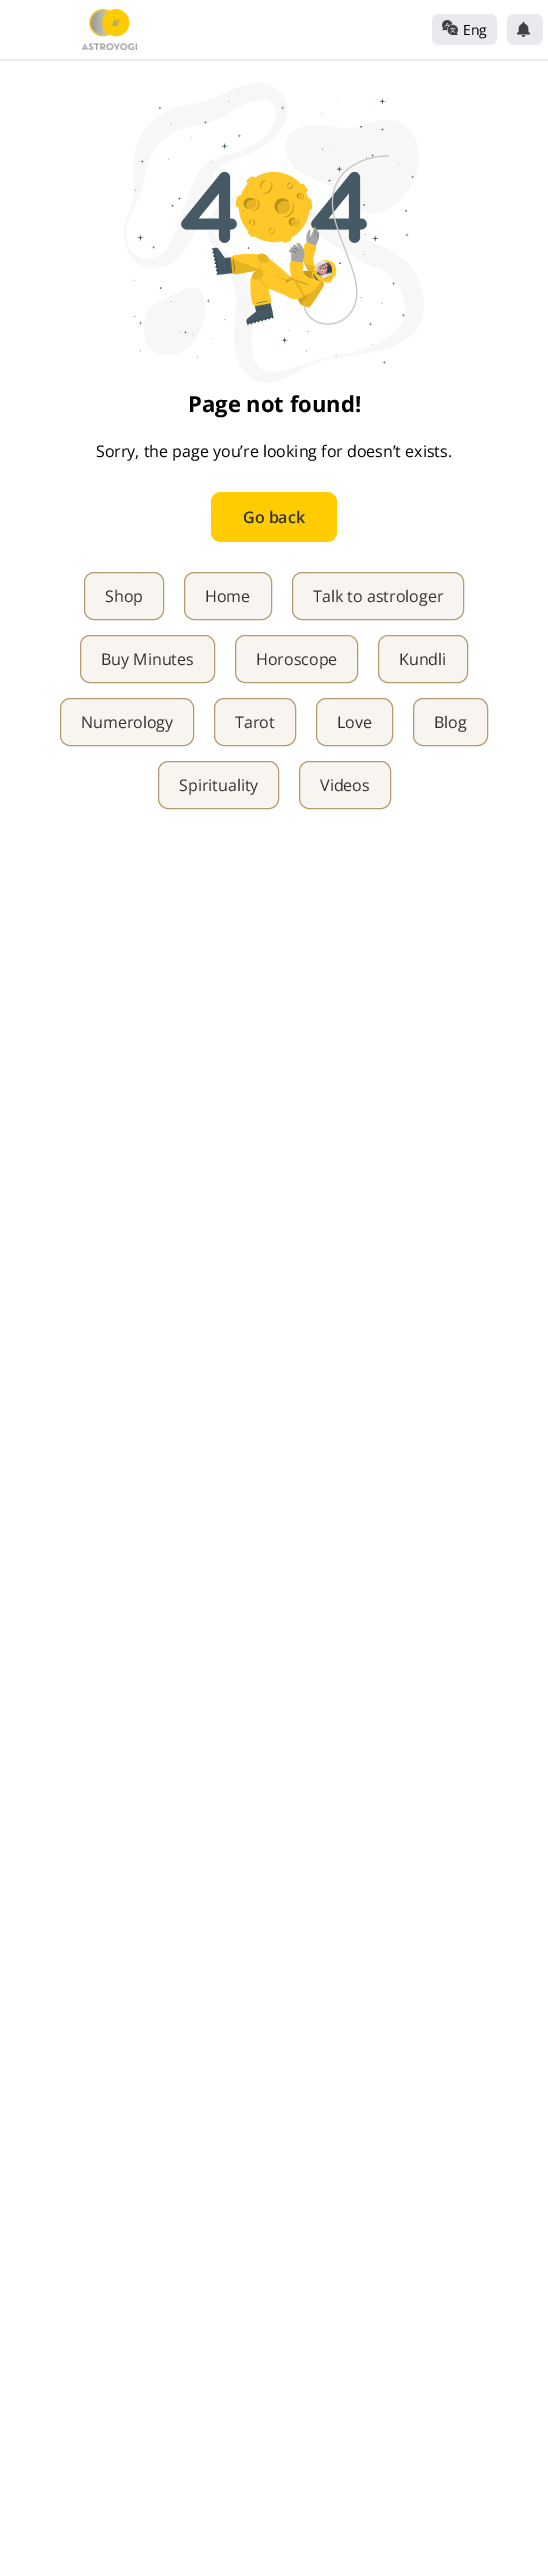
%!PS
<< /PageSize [548 2564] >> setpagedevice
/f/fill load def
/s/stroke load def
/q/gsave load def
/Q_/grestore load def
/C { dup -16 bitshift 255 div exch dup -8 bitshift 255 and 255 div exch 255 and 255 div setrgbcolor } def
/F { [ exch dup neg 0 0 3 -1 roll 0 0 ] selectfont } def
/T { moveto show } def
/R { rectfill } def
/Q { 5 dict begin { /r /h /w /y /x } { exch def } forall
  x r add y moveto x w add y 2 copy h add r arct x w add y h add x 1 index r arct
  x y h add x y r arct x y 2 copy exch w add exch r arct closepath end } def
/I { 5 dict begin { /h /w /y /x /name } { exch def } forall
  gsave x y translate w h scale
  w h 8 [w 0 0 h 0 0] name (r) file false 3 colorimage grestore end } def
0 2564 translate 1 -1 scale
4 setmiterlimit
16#FFFFFF C
0 0 548 2564 R
16#EDEDED C
0 59 548 2 R
(1.rgb) 82 9 55 41 I
16#E8EAEE C
432 14 65 31 7 Q f
(2.rgb) 442 20 16 15 I
/OpenSans-Regular 14 F
16#000000 C
(Eng) 463 35 T
16#E8EAEE C
507 14 36 31 7 Q f
(3.rgb) 517 22 13 15 I
(4.rgb) 124 83 300 300 I
/OpenSans-Bold 22 F
16#000000 C
(Page not found!) 188 412 T
/OpenSans-Regular 16 F
(Sorry, the page you’re looking for doesn’t exists.) 96 457 T
16#FFCC00 C
211 492 126 50 10 Q f
/OpenSans-SemiBold 16 F
16#333333 C
(Go back) 243 523 T
16#F8F5F1 C
84.5 572.5 79 47 9.5 Q q f Q_
16#B49B72 C
s
/OpenSans-Regular 16 F
16#333333 C
(Shop) 105 602 T
16#F8F5F1 C
184.5 572.5 87 47 9.5 Q q f Q_
16#B49B72 C
s
16#333333 C
(Home) 205 602 T
16#F8F5F1 C
292.5 572.5 171 47 9.5 Q q f Q_
16#B49B72 C
s
16#333333 C
(Talk to astrologer) 313 602 T
16#F8F5F1 C
80.5 635.5 134 47 9.5 Q q f Q_
16#B49B72 C
s
16#333333 C
(Buy Minutes) 101 665 T
16#F8F5F1 C
235.5 635.5 122 47 9.5 Q q f Q_
16#B49B72 C
s
16#333333 C
(Horoscope) 256 665 T
16#F8F5F1 C
378.5 635.5 89 47 9.5 Q q f Q_
16#B49B72 C
s
16#333333 C
(Kundli) 399 665 T
16#F8F5F1 C
60.5 698.5 133 47 9.5 Q q f Q_
16#B49B72 C
s
16#333333 C
(Numerology) 81 728 T
16#F8F5F1 C
214.5 698.5 81 47 9.5 Q q f Q_
16#B49B72 C
s
16#333333 C
(Tarot) 235 728 T
16#F8F5F1 C
316.5 698.5 76 47 9.5 Q q f Q_
16#B49B72 C
s
16#333333 C
(Love) 337 728 T
16#F8F5F1 C
413.5 698.5 74 47 9.5 Q q f Q_
16#B49B72 C
s
16#333333 C
(Blog) 434 728 T
16#F8F5F1 C
158.5 761.5 120 47 9.5 Q q f Q_
16#B49B72 C
s
16#333333 C
(Spirituality) 179 791 T
16#F8F5F1 C
299.5 761.5 91 47 9.5 Q q f Q_
16#B49B72 C
s
16#333333 C
(Videos) 320 791 T
showpage
